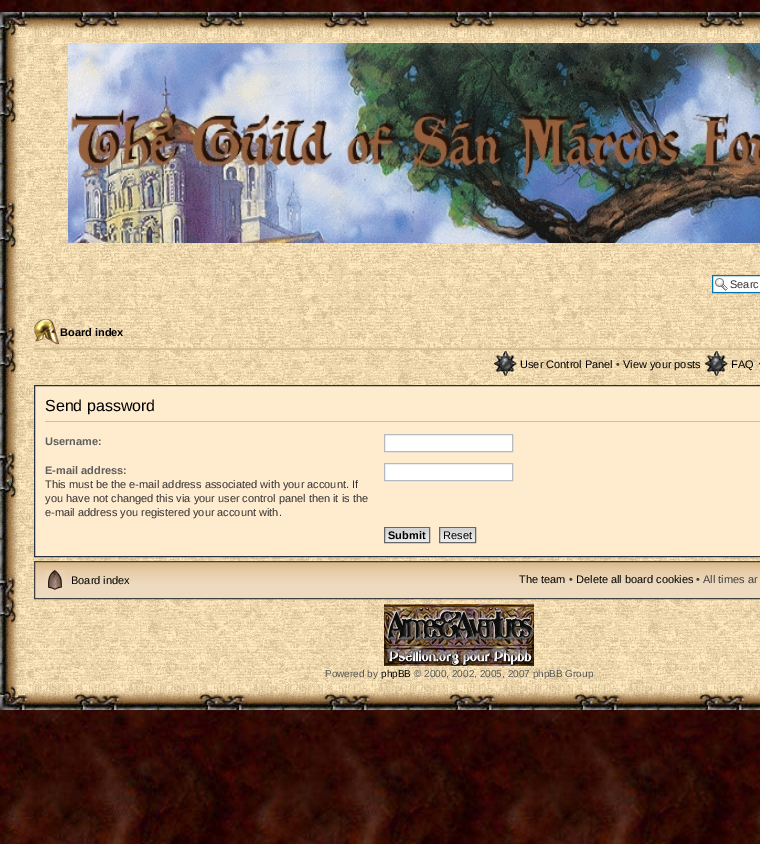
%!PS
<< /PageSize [760 844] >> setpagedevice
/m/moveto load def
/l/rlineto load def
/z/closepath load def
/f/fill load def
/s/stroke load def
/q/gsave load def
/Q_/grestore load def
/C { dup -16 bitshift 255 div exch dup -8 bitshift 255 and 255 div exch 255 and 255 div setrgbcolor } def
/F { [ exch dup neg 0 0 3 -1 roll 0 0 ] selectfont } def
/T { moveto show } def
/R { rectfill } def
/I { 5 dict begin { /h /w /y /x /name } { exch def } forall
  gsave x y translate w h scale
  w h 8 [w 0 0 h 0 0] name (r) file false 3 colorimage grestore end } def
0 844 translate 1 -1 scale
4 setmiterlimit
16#FFFFFF C
0 0 760 844 R
(1.rgb) 0 733 760 111 I
(2.rgb) 0 0 760 733 I
(3.rgb) 0 12 34 26 I
(4.rgb) 34 12 726 26 I
(5.rgb) 0 38 34 646 I
(6.rgb) 34 38 726 646 I
(7.rgb) 68 43 692 200 I
713 276 47 16 R
(8.rgb) 715 278 13 13 I
16#0075B0 C
712.5 275.5 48 17 rectstroke
/LiberationSans-Regular 11 F
16#333333 C
(Searc) 730 288 T
16#D5BF93 C
34 348 726 2 R
(9.rgb) 34 319 25 25 I
/LiberationSans-Bold 11 F
16#000000 C
(Board index) 60 336 T
(10.rgb) 494 351 23 25 I
/LiberationSans-Regular 11 F
(User Control Panel) 520 368 T
16#404040 C
(•) 616 368 T
16#000000 C
(View your posts) 623 368 T
(10.rgb) 705 351 23 25 I
(FAQ) 731 368 T
(11.rgb) 759 352 1 24 I
16#FFEBCD C
34.5 385.5 m 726 0 l 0 171 l -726 0 l z q f Q_
16#28313F C
s
16#D5BF93 C
45 421 715 1 R
/LiberationSans-Regular 16 F
16#000000 C
(Send password) 45 411 T
/LiberationSans-Bold 11 F
16#5F5F5F C
(Username:) 45 445 T
16#FFFFFF C
384.5 434.5 m 128 0 l 0 17 l -128 0 l z q f Q_
16#B4BAC0 C
s
16#5F5F5F C
(E-mail address:) 45 474 T
/LiberationSans-Regular 11 F
16#333333 C
(This must be the e-mail address associated with your account. If) 45 488 T
(you have not changed this via your user control panel then it is the) 45 502 T
(e-mail address you registered your account with.) 45 516 T
16#FFFFFF C
384.5 463.5 m 128 0 l 0 17 l -128 0 l z q f Q_
16#B4BAC0 C
s
(12.rgb) 385 528 44 14 I
16#666666 C
384.5 527.5 45 15 rectstroke
/LiberationSans-Bold 11 F
16#000000 C
(Submit) 388 539 T
(13.rgb) 440 528 35 14 I
16#666666 C
439.5 527.5 36 15 rectstroke
/LiberationSans-Regular 11 F
16#000000 C
(Reset) 443 539 T
(14.rgb) 35 562 725 36 I
16#404040 C
34.5 561.5 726 37 rectstroke
(15.rgb) 45 570 20 20 I
16#000000 C
(Board index) 71 584 T
(The team) 519 583 T
16#404040 C
(•) 569 583 T
16#000000 C
(Delete all board cookies) 576 583 T
16#404040 C
(• All times ar) 696 583 T
(16.rgb) 384 604 150 62 I
/LiberationSans-Regular 10 F
16#555555 C
(Powered by) 325 677 T
16#000000 C
(phpBB) 381 677 T
16#555555 C
(© 2000, 2002, 2005, 2007 phpBB Group) 414 677 T
(17.rgb) 0 684 34 26 I
(18.rgb) 34 684 726 26 I
showpage
